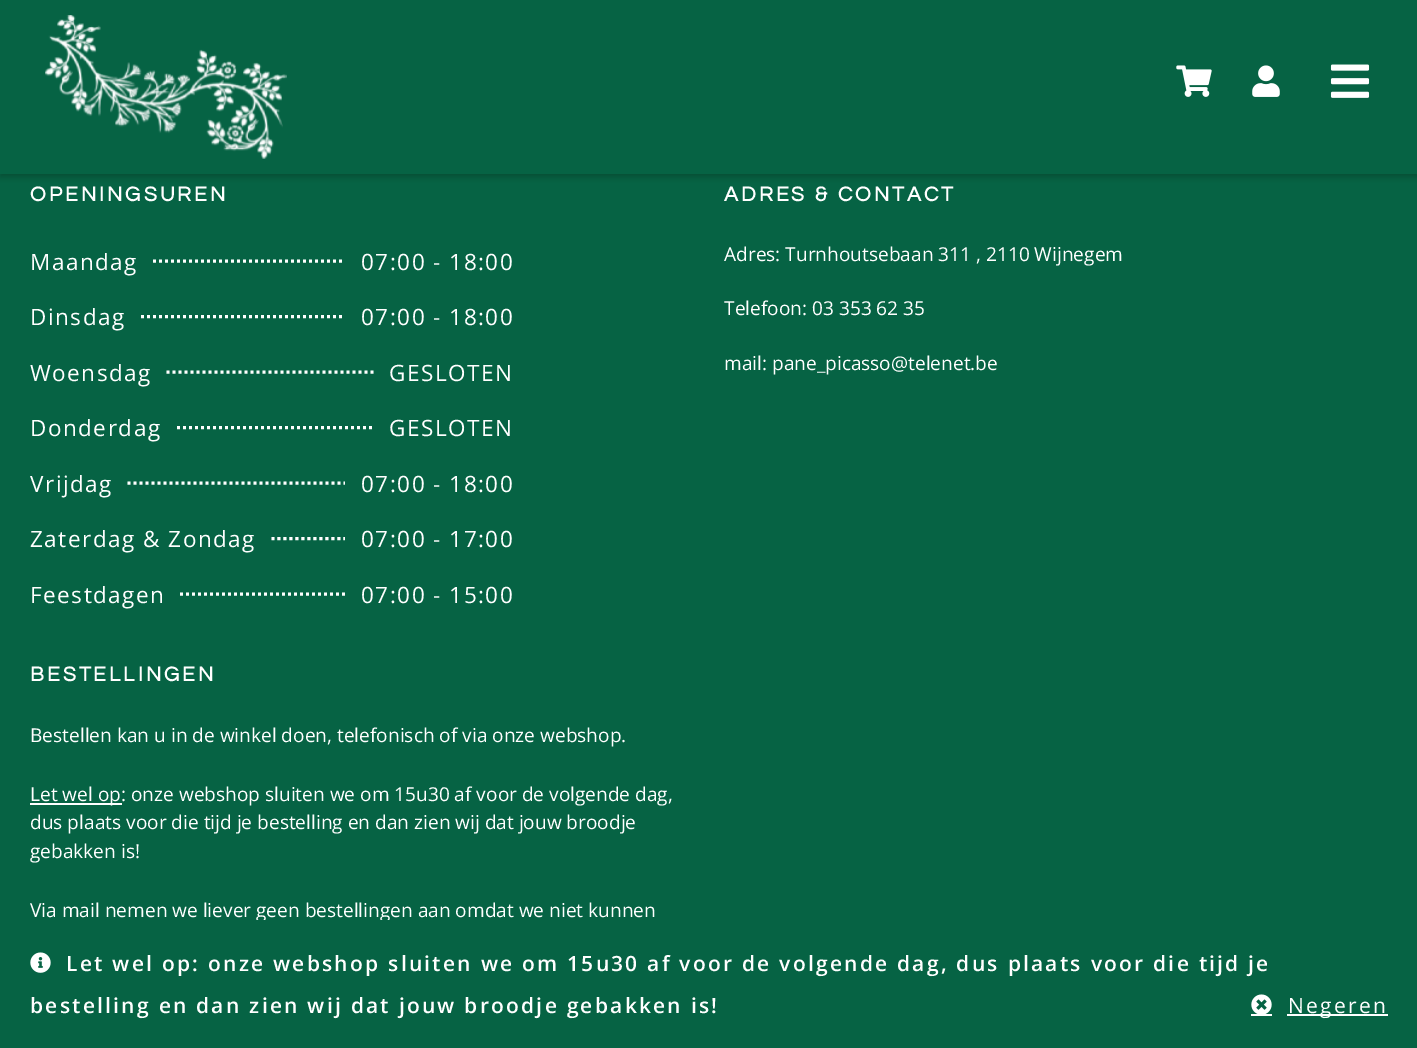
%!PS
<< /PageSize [1417 1048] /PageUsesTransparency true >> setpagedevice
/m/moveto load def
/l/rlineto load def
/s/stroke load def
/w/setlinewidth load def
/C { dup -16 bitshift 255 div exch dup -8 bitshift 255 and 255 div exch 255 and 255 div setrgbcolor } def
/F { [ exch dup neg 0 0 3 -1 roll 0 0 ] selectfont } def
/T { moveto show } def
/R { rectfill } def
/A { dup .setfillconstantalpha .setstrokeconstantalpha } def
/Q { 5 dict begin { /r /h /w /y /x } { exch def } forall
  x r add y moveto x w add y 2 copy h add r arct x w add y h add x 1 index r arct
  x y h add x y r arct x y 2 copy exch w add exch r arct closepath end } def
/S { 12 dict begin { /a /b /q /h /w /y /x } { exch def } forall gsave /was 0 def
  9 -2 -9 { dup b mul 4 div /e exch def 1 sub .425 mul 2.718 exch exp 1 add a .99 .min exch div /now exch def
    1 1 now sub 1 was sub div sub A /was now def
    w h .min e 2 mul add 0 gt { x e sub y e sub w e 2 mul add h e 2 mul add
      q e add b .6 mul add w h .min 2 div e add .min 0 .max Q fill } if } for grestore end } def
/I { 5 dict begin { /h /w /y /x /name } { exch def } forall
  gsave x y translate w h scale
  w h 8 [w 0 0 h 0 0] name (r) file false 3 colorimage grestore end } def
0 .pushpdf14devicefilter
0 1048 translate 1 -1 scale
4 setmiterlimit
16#066344 C
0 0 1417 1048 R
16#000000 C
0 3 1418 174 0 3 .2 S
16#066344 C
0 0 1417 174 R
(1.rgb) 45 15 242 144 I
(2.rgb) 1176 65 36 32 I
(3.rgb) 1252 65 28 32 I
(4.rgb) 1330 64 40 34 I
/Questrial-Bold 21 F
16#FFFFFF C
30 201 m 3 0 (OPENINGSUREN) ashow
/OpenSans-Regular 22.5 F
30 270 m 1.5 0 (Maandag) ashow
3 w
[3 3] 0 setdash
153 261 m 192 0 l s
361 270 m 1.5 0 (07:00 - 18:00) ashow
30 325 m 1.5 0 (Dinsdag) ashow
141 316.5 m 204 0 l s
361 325 m 1.5 0 (07:00 - 18:00) ashow
30 381 m 1.5 0 (Woensdag) ashow
166.5 372 m 208.5 0 l s
389 381 m 1.5 0 (GESLOTEN) ashow
30 436 m 1.5 0 (Donderdag) ashow
177 427.5 m 198 0 l s
389 436 m 1.5 0 (GESLOTEN) ashow
30 492 m 1.5 0 (Vrijdag) ashow
127.5 483 m 217.5 0 l s
361 492 m 1.5 0 (07:00 - 18:00) ashow
30 547 m 1.5 0 (Zaterdag & Zondag) ashow
271.5 538.5 m 73.5 0 l s
361 547 m 1.5 0 (07:00 - 17:00) ashow
30 603 m 1.5 0 (Feestdagen) ashow
180 594 m 165 0 l s
361 603 m 1.5 0 (07:00 - 15:00) ashow
/Questrial-Bold 21 F
724 201 m 3 0 (ADRES & CONTACT) ashow
/OpenSans-Regular 19.1 F
(Adres: Turnhoutsebaan 311 , 2110 Wijnegem) 724 261 T
(Telefoon: 03 353 62 35) 724 315 T
(mail: pane_picasso@telenet.be) 724 370 T
/Questrial-Bold 21 F
30 681 m 3 0 (BESTELLINGEN) ashow
/OpenSans-Regular 19.1 F
(Bestellen kan u in de winkel doen, telefonisch of via onze webshop.) 30 742 T
30 803 92 2 R
(Let wel op: onze webshop sluiten we om 15u30 af voor de volgende dag,) 30 801 T
(dus plaats voor die tijd je bestelling en dan zien wij dat jouw broodje) 30 829 T
(gebakken is!) 30 858 T
(Via mail nemen we liever geen bestellingen aan omdat we niet kunnen) 30 917 T
16#066344 C
256 920 134 2 R
(5.rgb) 30 952 21 21 I
/OpenSans-SemiBold 21 F
16#FFFFFF C
66 971 m 2.25 0 (Let wel op: onze webshop sluiten we om 15u30 af voor de volgende dag, dus plaats voor die tijd je) ashow
30 1013 m 2.25 0 (bestelling en dan zien wij dat jouw broodje gebakken is!) ashow
(6.rgb) 1251 994 21 20 I
1287 1014 101 2 R
/OpenSans-Regular 21 F
1288 1013 m 2.25 0 (Negeren) ashow
1251 1014 21 2 R
.poppdf14devicefilter showpage
